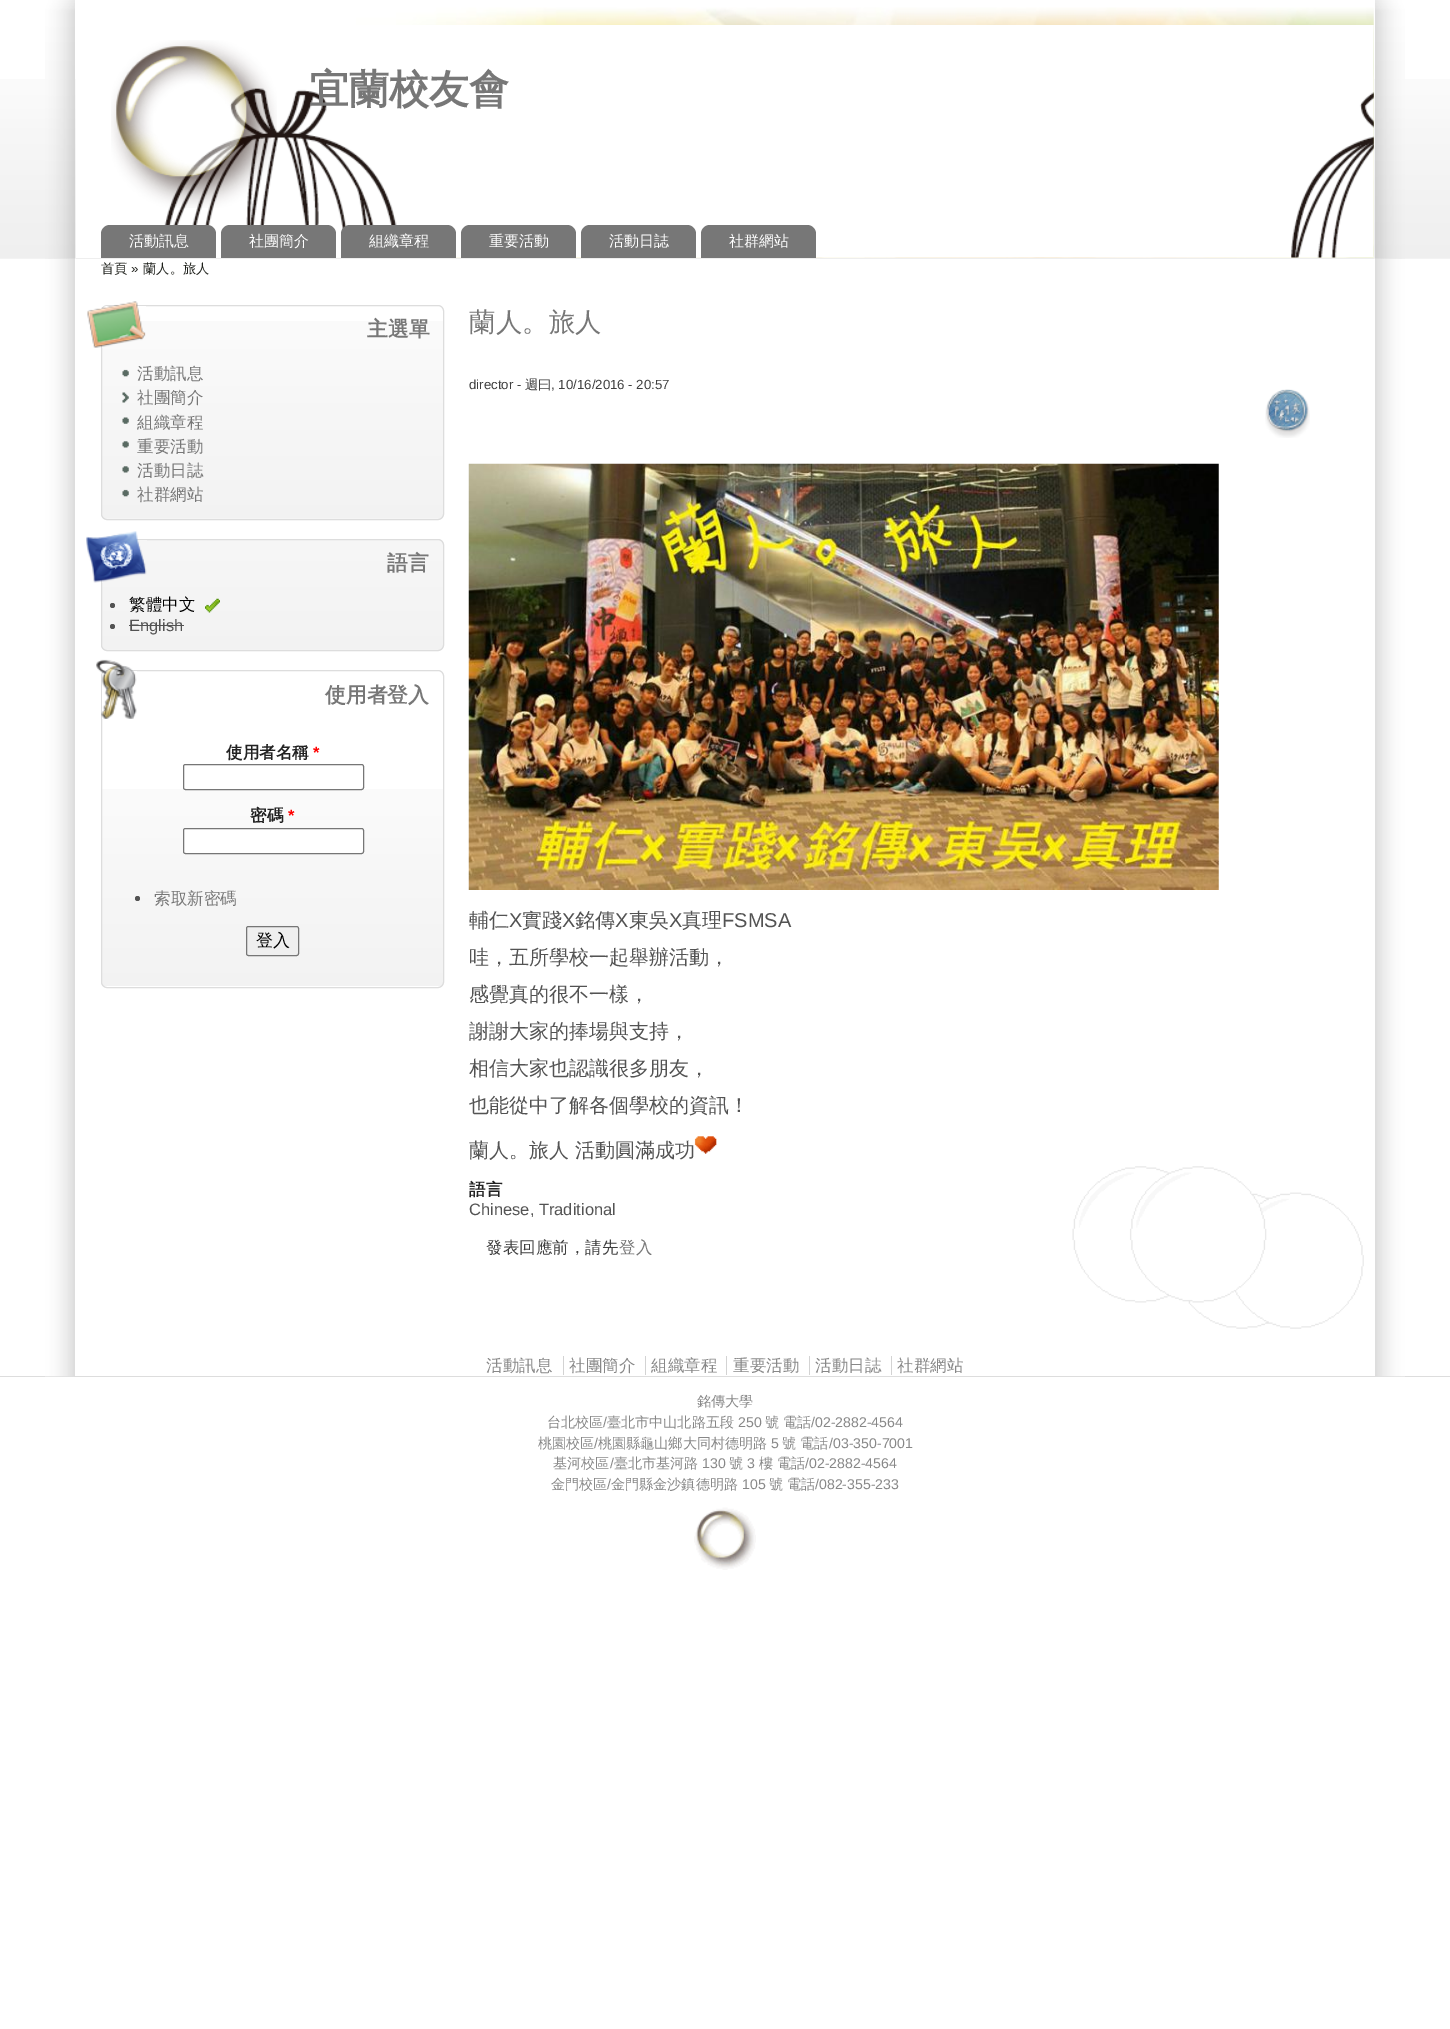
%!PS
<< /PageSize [1450 2029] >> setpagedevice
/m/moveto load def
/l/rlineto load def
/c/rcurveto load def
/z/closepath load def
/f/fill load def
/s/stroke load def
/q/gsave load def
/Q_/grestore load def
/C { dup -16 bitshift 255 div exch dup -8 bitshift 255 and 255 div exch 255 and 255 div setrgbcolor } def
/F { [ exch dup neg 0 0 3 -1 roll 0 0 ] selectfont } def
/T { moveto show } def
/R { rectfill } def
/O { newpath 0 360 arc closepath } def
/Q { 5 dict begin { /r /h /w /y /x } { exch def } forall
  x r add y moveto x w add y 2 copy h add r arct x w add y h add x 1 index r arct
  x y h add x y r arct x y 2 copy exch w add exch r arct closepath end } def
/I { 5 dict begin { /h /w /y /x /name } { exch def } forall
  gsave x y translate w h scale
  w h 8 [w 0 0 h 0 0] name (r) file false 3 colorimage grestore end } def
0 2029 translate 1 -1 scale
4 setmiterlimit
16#FFFFFF C
0 0 1450 2029 R
(1.rgb) 0 79 1450 180 I
16#DDDDDD C
0 1376 1450 1 R
(7.rgb) 45 258 30 1119 I
(2.rgb) 45 0 30 259 I
(8.rgb) 1375 258 30 1119 I
(3.rgb) 1375 0 30 259 I
16#FFFFFF C
76 79 1298 179 R
(4.rgb) 324 7 1050 251 I
16#EEEEEE C
76 258 1298 1 R
(5.rgb) 161 25 1213 233 I
(6.rgb) 111 40 166 168 I
/WenQuanYiZenHei-Bold 40 F
16#777777 C
(宜蘭校友會) 309 103 T
110 225 m 97 0 l 5 0 9 4 9 9 c 0 24 l -115 0 l 0 -24 l 0 -5 4 -9 9 -9 c z f
/WenQuanYiZenHei-Medium 15 F
16#FFFFFF C
(活動訊息) 129 246 T
16#777777 C
230 225 m 97 0 l 5 0 9 4 9 9 c 0 24 l -115 0 l 0 -24 l 0 -5 4 -9 9 -9 c z f
16#FFFFFF C
(社團簡介) 249 246 T
16#777777 C
350 225 m 97 0 l 5 0 9 4 9 9 c 0 24 l -115 0 l 0 -24 l 0 -5 4 -9 9 -9 c z f
16#FFFFFF C
(組織章程) 369 246 T
16#777777 C
470 225 m 97 0 l 5 0 9 4 9 9 c 0 24 l -115 0 l 0 -24 l 0 -5 4 -9 9 -9 c z f
16#FFFFFF C
(重要活動) 489 246 T
16#777777 C
590 225 m 97 0 l 5 0 9 4 9 9 c 0 24 l -115 0 l 0 -24 l 0 -5 4 -9 9 -9 c z f
16#FFFFFF C
(活動日誌) 609 246 T
16#777777 C
710 225 m 97 0 l 5 0 9 4 9 9 c 0 24 l -115 0 l 0 -24 l 0 -5 4 -9 9 -9 c z f
16#FFFFFF C
(社群網站) 729 246 T
/WenQuanYiZenHei-Medium 13.25 F
16#1E201B C
(首頁) 101 273 T
/LiberationSans-Regular 13.25 F
(») 131 273 T
/WenQuanYiZenHei-Medium 13.25 F
(蘭人。旅人) 143 273 T
(9.rgb) 1072 1166 292 163 I
(10.rgb) 101 321 343 198 I
16#DDDDDD C
101.5 305.5 342 214 5.5 Q s
(11.rgb) 87 301 59 47 I
/WenQuanYiZenHei-Bold 20.75 F
16#777777 C
(主選單) 367 336 T
(12.rgb) 122 369 7 8 I
/WenQuanYiZenHei-Medium 16.5 F
(活動訊息) 137 379 T
(13.rgb) 122 392 7 11 I
(社團簡介) 137 403 T
(14.rgb) 122 417 7 7 I
(組織章程) 137 428 T
(15.rgb) 122 441 7 7 I
(重要活動) 137 452 T
(16.rgb) 122 466 7 7 I
(活動日誌) 137 476 T
(17.rgb) 122 489 7 8 I
(社群網站) 137 500 T
(18.rgb) 101 539 343 111 I
16#DDDDDD C
101.5 539.5 342 111 5.5 Q s
(19.rgb) 86 531 61 52 I
/WenQuanYiZenHei-Bold 20.75 F
16#777777 C
(語言) 387 570 T
16#535353 C
112.5 605.5 2.5 O f
/WenQuanYiZenHei-Medium 16.5 F
16#000000 C
(繁體中文) 129 610 T
(20.rgb) 205 598 15 15 I
16#535353 C
112.5 626.5 2.5 O f
/LiberationSans-Regular 16.5 F
(English) 129 631 T
129 625 55 1 R
(21.rgb) 101 789 343 197 I
16#DDDDDD C
101.5 670.5 342 317 5.5 Q s
(22.rgb) 96 659 41 60 I
/WenQuanYiZenHei-Bold 20.75 F
16#777777 C
(使用者登入) 325 702 T
/WenQuanYiZenHei-Bold 16.5 F
16#222222 C
(使用者名稱) 226 758 T
/LiberationSans-Bold 16.5 F
16#FF0000 C
(*) 313 758 T
16#FFFFFF C
183.5 764.5 180 25 2 Q q f Q_
16#767676 C
s
/WenQuanYiZenHei-Bold 16.5 F
16#222222 C
(密碼) 250 821 T
/LiberationSans-Bold 16.5 F
16#FF0000 C
(*) 288 821 T
16#FFFFFF C
183.5 828.5 180 25 2 Q q f Q_
16#767676 C
s
16#535353 C
137.5 898.5 2.5 O f
/WenQuanYiZenHei-Medium 16.5 F
16#777777 C
(索取新密碼) 154 904 T
16#EFEFEF C
246.5 926.5 52 29 2 Q q f Q_
16#767676 C
s
/WenQuanYiZenHei-Medium 17 F
16#000000 C
(登入) 256 946 T
/WenQuanYiZenHei-Medium 26.5 F
16#777777 C
(蘭人。旅人) 469 331 T
/LiberationSans-Regular 13.25 F
16#3F3F3F C
(director -) 469 389 T
/WenQuanYiZenHei-Medium 13.25 F
(週曰) 525 389 T
/LiberationSans-Regular 13.25 F
(, 10/16/2016 - 20:57) 551 389 T
(23.rgb) 1265 389 45 49 I
(24.rgb) 468 463 751 427 I
/WenQuanYiZenHei-Medium 20 F
16#535353 C
(輔仁) 469 927 T
/LiberationSans-Regular 20 F
(X) 509 927 T
/WenQuanYiZenHei-Medium 20 F
(實踐) 522 927 T
/LiberationSans-Regular 20 F
(X) 562 927 T
/WenQuanYiZenHei-Medium 20 F
(銘傳) 575 927 T
/LiberationSans-Regular 20 F
(X) 615 927 T
/WenQuanYiZenHei-Medium 20 F
(東吳) 629 927 T
/LiberationSans-Regular 20 F
(X) 669 927 T
/WenQuanYiZenHei-Medium 20 F
(真理) 682 927 T
/LiberationSans-Regular 20 F
(FSMSA) 722 927 T
/WenQuanYiZenHei-Medium 20 F
(哇，五所學校一起舉辦活動，) 469 964 T
(感覺真的很不一樣，) 469 1001 T
(謝謝大家的捧場與支持，) 469 1038 T
(相信大家也認識很多朋友，) 469 1075 T
(也能從中了解各個學校的資訊！) 469 1112 T
(蘭人。旅人 活動圓滿成功) 469 1157 T
(25.rgb) 694 1136 23 18 I
/WenQuanYiZenHei-Bold 16.5 F
16#222222 C
(語言) 469 1195 T
/LiberationSans-Regular 16.5 F
16#535353 C
(Chinese, Traditional) 469 1215 T
/WenQuanYiZenHei-Medium 16.5 F
16#3F3F3F C
(發表回應前，請先) 486 1253 T
16#777777 C
(登入) 619 1253 T
16#888888 C
(活動訊息) 486 1371 T
(社團簡介) 569 1371 T
16#D3D3D3 C
563 1356 1 19 R
16#888888 C
(組織章程) 651 1371 T
16#D3D3D3 C
645 1356 1 19 R
16#888888 C
(重要活動) 733 1371 T
16#D3D3D3 C
726 1356 1 19 R
16#888888 C
(活動日誌) 815 1371 T
16#D3D3D3 C
809 1356 1 19 R
16#888888 C
(社群網站) 897 1371 T
16#D3D3D3 C
891 1356 1 19 R
/WenQuanYiZenHei-Medium 14.1 F
16#888888 C
(銘傳大學) 697 1406 T
(台北校區) 547 1427 T
/LiberationSans-Regular 14.1 F
(/) 603 1427 T
/WenQuanYiZenHei-Medium 14.1 F
(臺北市中山北路五段) 607 1427 T
/LiberationSans-Regular 14.1 F
(250) 738 1427 T
/WenQuanYiZenHei-Medium 14.1 F
(號 電話) 765 1427 T
/LiberationSans-Regular 14.1 F
(/02-2882-4564) 811 1427 T
/WenQuanYiZenHei-Medium 14.1 F
(桃園校區) 538 1448 T
/LiberationSans-Regular 14.1 F
(/) 594 1448 T
/WenQuanYiZenHei-Medium 14.1 F
(桃園縣龜山鄉大同村德明路) 598 1448 T
/LiberationSans-Regular 14.1 F
(5) 771 1448 T
/WenQuanYiZenHei-Medium 14.1 F
(號 電話) 782 1448 T
/LiberationSans-Regular 14.1 F
(/03-350-7001) 829 1448 T
/WenQuanYiZenHei-Medium 14.1 F
(基河校區) 553 1468 T
/LiberationSans-Regular 14.1 F
(/) 610 1468 T
/WenQuanYiZenHei-Medium 14.1 F
(臺北市基河路) 614 1468 T
/LiberationSans-Regular 14.1 F
(130) 702 1468 T
/WenQuanYiZenHei-Medium 14.1 F
(號) 729 1468 T
/LiberationSans-Regular 14.1 F
(3) 747 1468 T
/WenQuanYiZenHei-Medium 14.1 F
(樓 電話) 759 1468 T
/LiberationSans-Regular 14.1 F
(/02-2882-4564) 805 1468 T
/WenQuanYiZenHei-Medium 14.1 F
(金門校區) 551 1489 T
/LiberationSans-Regular 14.1 F
(/) 607 1489 T
/WenQuanYiZenHei-Medium 14.1 F
(金門縣金沙鎮德明路) 611 1489 T
/LiberationSans-Regular 14.1 F
(105) 742 1489 T
/WenQuanYiZenHei-Medium 14.1 F
(號 電話) 769 1489 T
/LiberationSans-Regular 14.1 F
(/082-355-233) 815 1489 T
(26.rgb) 694 1507 62 63 I
showpage
